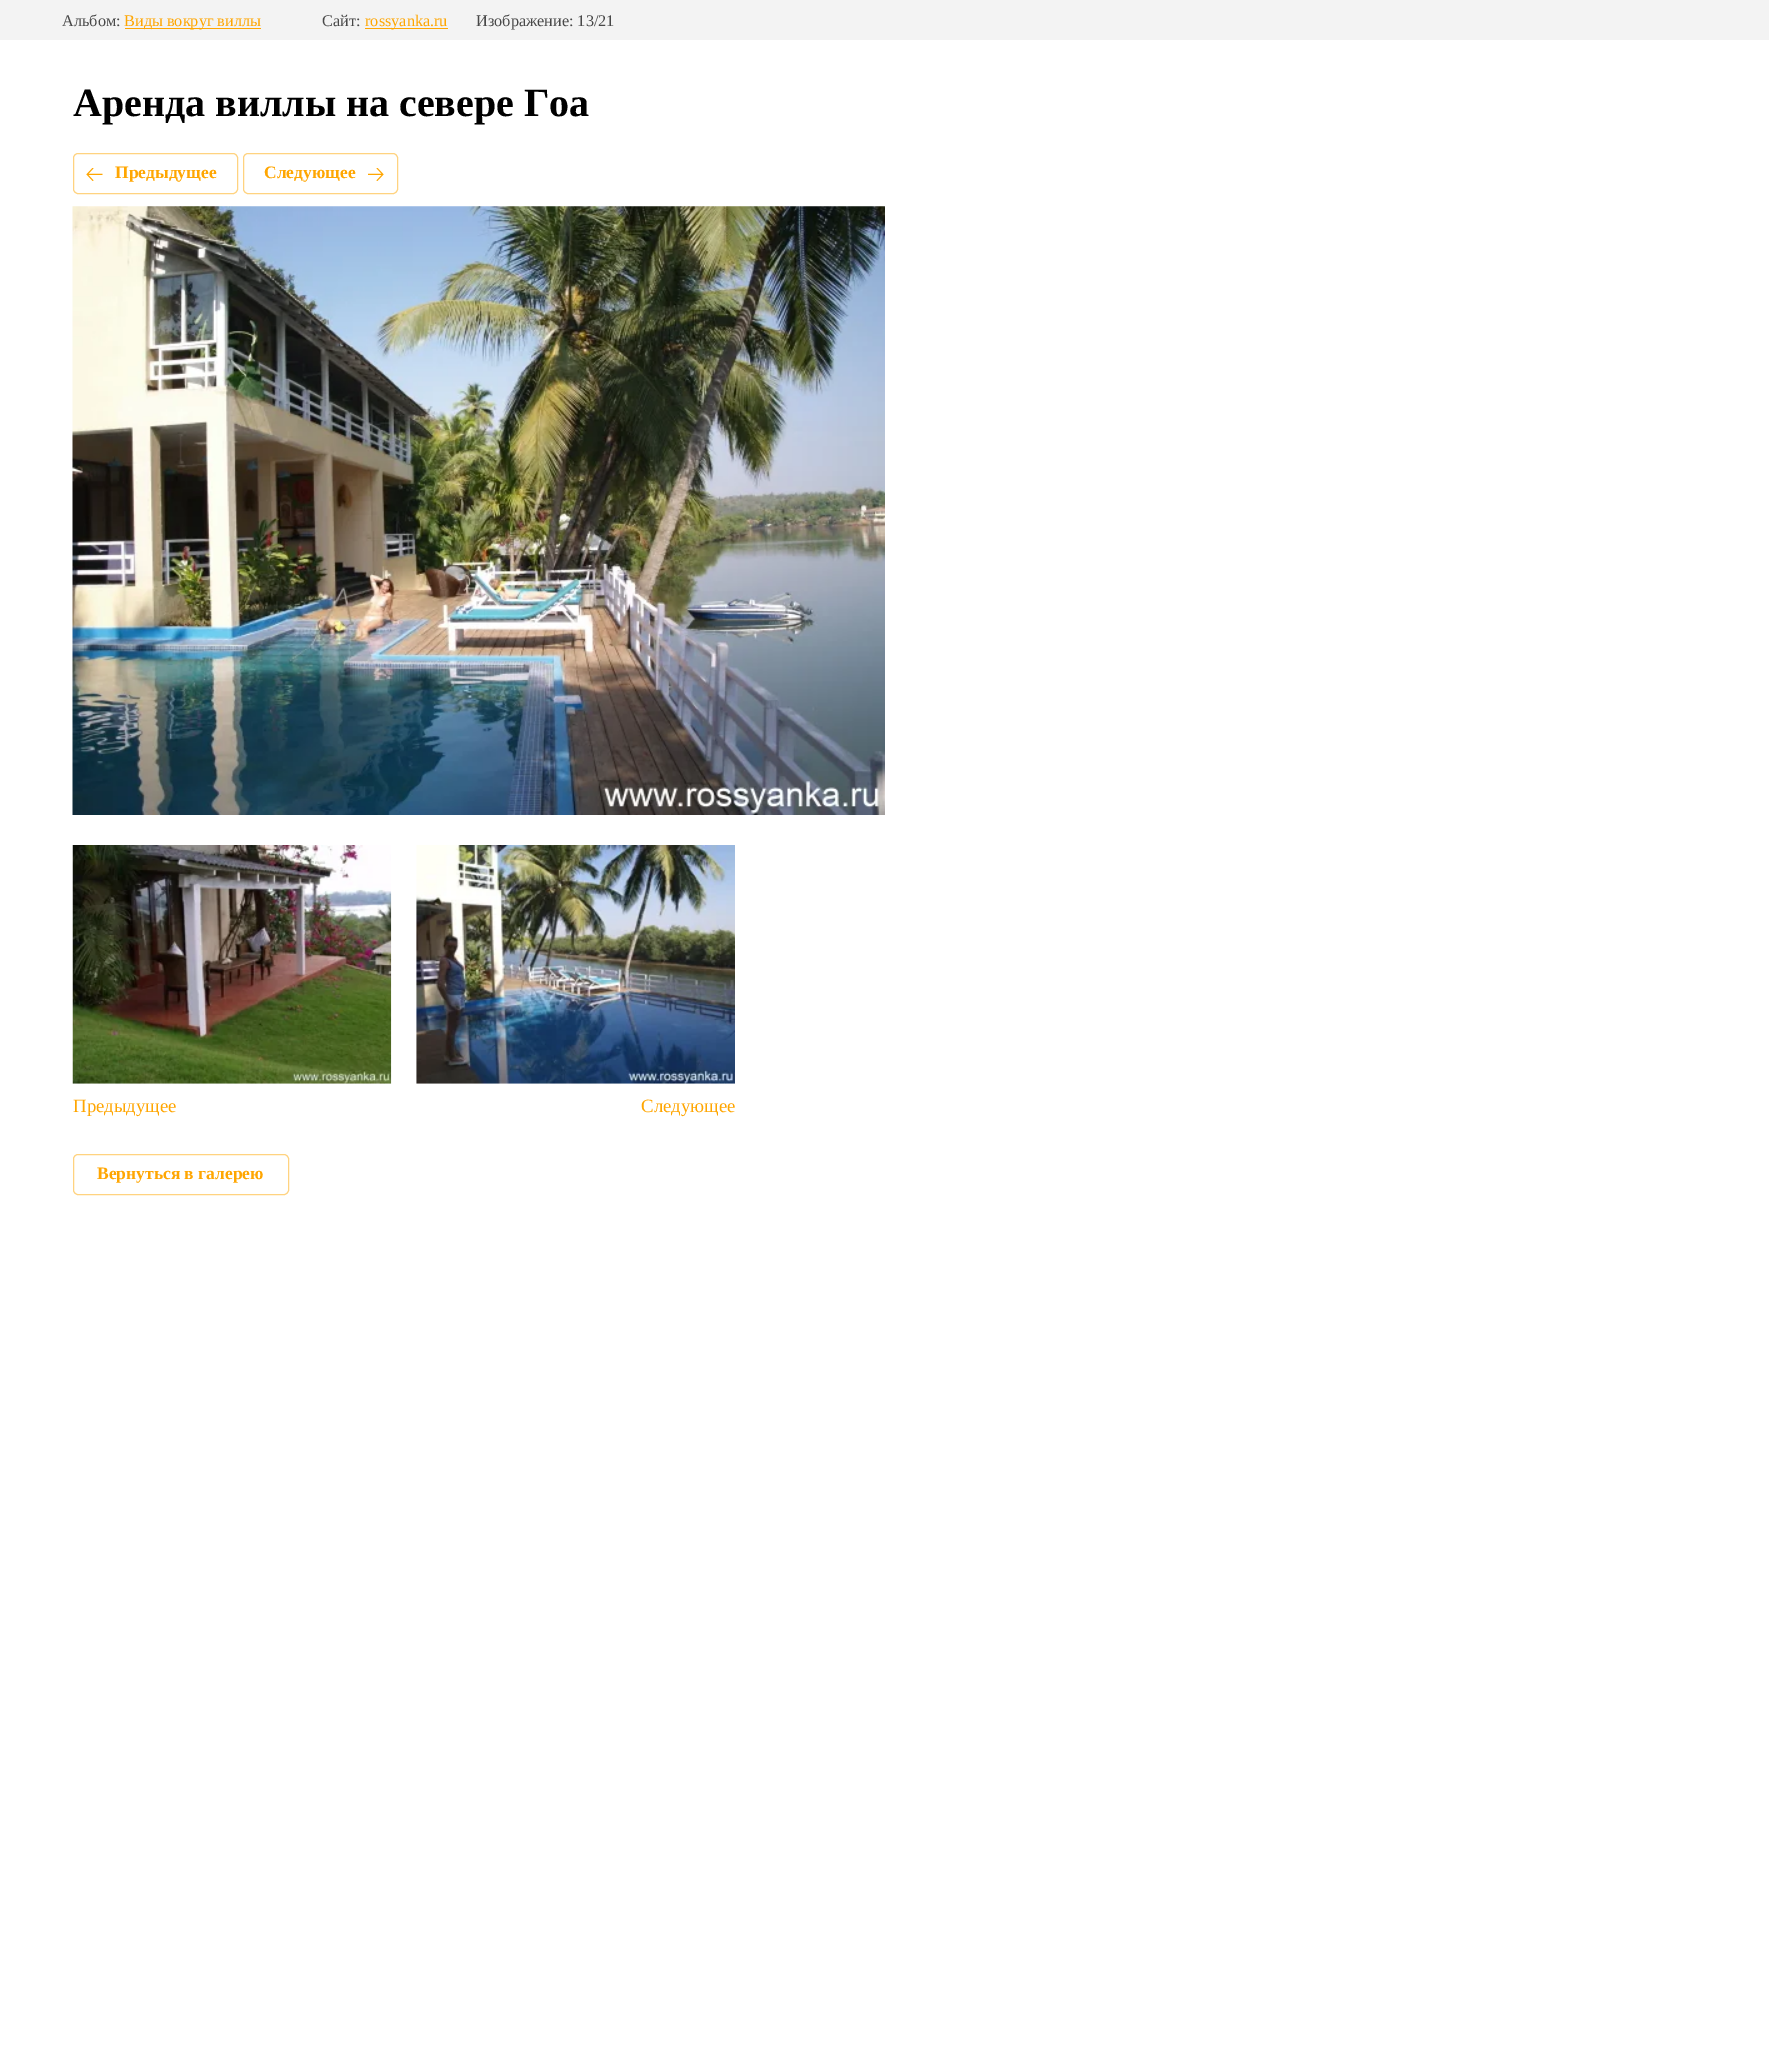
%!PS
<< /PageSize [1769 2065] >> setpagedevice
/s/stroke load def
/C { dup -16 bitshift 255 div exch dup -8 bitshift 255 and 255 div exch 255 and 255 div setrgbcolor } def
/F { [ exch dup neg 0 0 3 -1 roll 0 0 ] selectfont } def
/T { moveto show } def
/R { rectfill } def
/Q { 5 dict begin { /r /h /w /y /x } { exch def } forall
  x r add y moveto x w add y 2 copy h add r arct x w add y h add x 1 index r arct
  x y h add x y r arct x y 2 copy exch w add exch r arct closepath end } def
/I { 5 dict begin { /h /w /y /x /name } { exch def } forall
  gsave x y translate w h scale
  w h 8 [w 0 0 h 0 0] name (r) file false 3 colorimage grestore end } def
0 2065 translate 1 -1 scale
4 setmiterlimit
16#FFFFFF C
0 0 1769 2065 R
16#F3F3F3 C
0 0 1769 40 R
/LiberationSerif-Regular 16.25 F
16#484848 C
(Альбом:) 62 26 T
16#FFA601 C
125 28 136 1 R
(Виды вокруг виллы) 124 26 T
16#484848 C
(Сайт:) 322 26 T
16#FFA601 C
365 28 83 1 R
(rossyanka.ru) 365 26 T
16#484848 C
(Изображение: 13/21) 476 26 T
/LiberationSerif-Bold 40 F
16#000000 C
(Аренда виллы на севере Гоа) 73 116 T
16#FFD380 C
73.5 153.5 164 40 4.5 Q s
(1.rgb) 86 168 17 13 I
/LiberationSerif-Bold 17.5 F
16#FFA601 C
(Предыдущее) 115 178 T
16#FFD380 C
243.5 153.5 154 40 4.5 Q s
16#FFA601 C
(Следующее) 264 178 T
(2.rgb) 368 168 16 13 I
(3.rgb) 72 206 813 609 I
(4.rgb) 72 845 320 239 I
/LiberationSerif-Regular 18.75 F
(Предыдущее) 73 1112 T
(5.rgb) 416 845 319 239 I
(Следующее) 641 1112 T
16#FFD380 C
73.5 1154.5 215 40 4.5 Q s
/LiberationSerif-Bold 17.5 F
16#FFA601 C
(Вернуться в галерею) 97 1179 T
showpage
